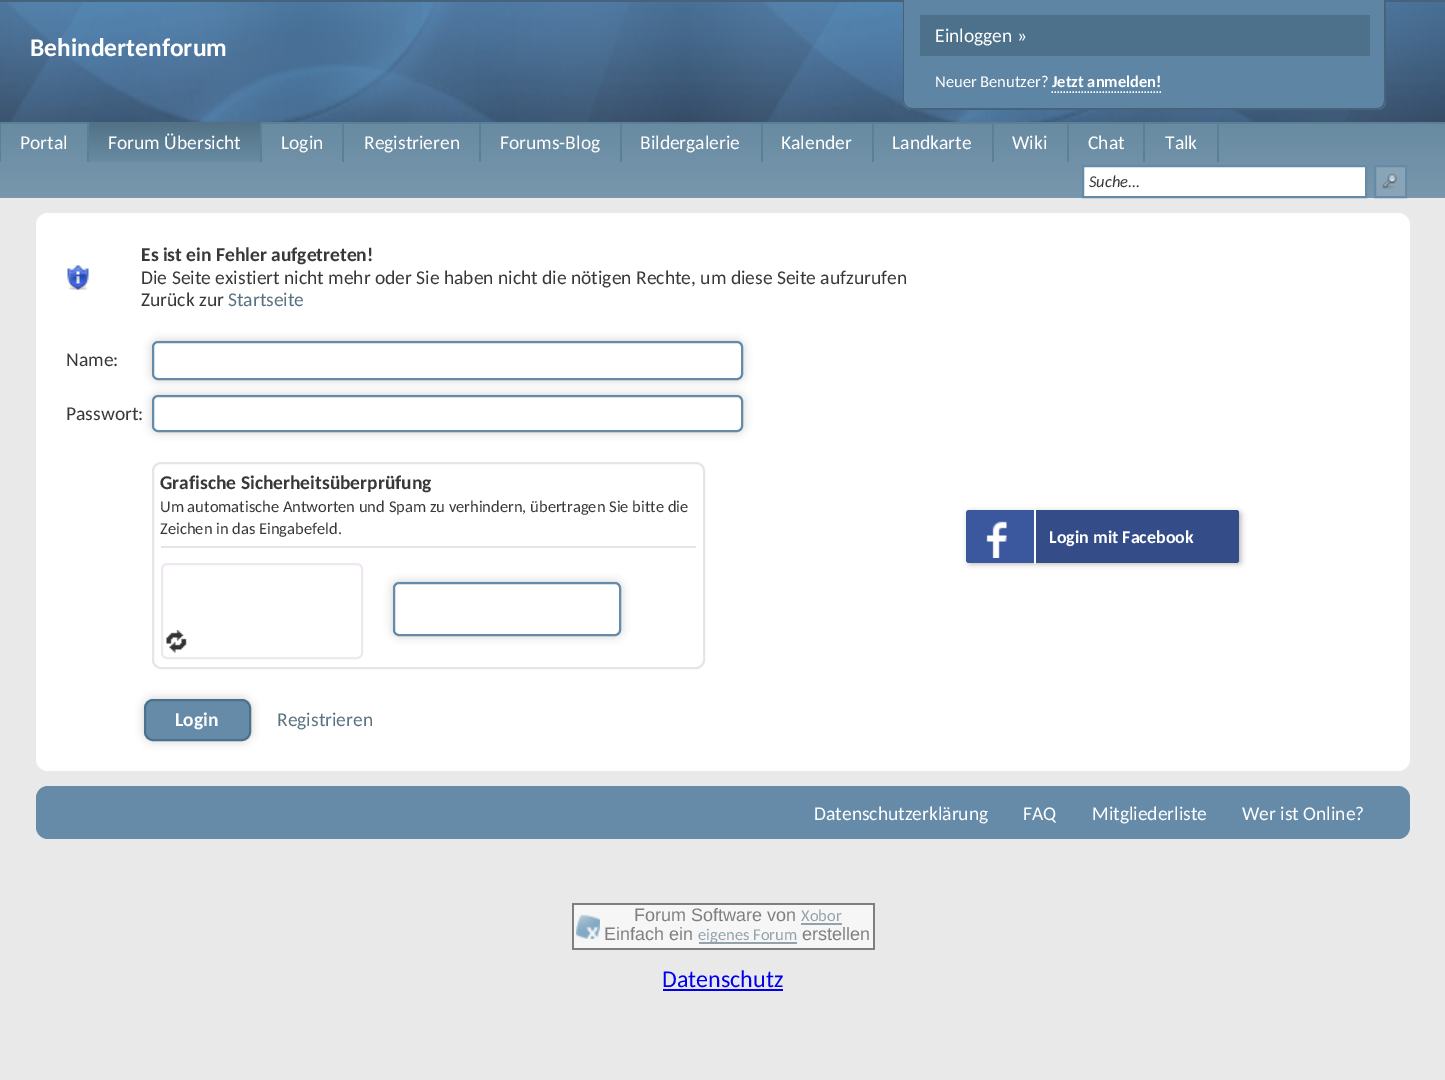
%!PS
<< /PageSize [1445 1080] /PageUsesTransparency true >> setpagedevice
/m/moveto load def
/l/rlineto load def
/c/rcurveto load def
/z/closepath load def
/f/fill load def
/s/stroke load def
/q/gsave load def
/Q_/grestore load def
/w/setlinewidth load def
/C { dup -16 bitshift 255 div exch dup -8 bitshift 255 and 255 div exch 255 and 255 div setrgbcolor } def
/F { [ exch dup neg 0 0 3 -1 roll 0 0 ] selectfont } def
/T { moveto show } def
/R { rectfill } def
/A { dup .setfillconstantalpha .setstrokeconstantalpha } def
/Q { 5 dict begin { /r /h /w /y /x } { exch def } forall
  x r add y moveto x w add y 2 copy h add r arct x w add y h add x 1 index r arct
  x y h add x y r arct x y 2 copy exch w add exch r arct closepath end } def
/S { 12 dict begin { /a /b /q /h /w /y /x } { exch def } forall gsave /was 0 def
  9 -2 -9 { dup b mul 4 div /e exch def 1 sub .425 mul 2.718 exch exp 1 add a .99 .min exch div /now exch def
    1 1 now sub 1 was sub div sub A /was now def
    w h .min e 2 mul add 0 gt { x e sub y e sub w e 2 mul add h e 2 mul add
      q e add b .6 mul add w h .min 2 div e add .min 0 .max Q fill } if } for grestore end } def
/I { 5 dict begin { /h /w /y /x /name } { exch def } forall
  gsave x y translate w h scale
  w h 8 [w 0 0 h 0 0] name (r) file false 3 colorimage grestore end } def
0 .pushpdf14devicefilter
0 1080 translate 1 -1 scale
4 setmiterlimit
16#E9E9E9 C
0 0 1445 1080 R
16#45637B C
0 0 1445 2 R
(1.rgb) 0 2 1445 120 I
16#5E86A4 C
903 0 m 483 0 l 0 101 l 0 5 -4 9 -9 9 c -465 0 l -5 0 -9 -4 -9 -9 c z f
16#45637B C
903 0 m 483 0 l 0 100 l 0 5 -4 10 -9 10 c -465 0 l -5 0 -9 -5 -9 -10 c z 904 0 m 480 0 l 0 100 l 0 5 -3 8 -7 8 c -465 0 l -4 0 -8 -3 -8 -8 c z eofill
16#4E718B C
920 15 450 41 R
/Carlito-Regular 19.5 F
16#FFFFFF C
(Einloggen ») 935 42 T
/Carlito-Regular 16.5 F
(Neuer Benutzer?) 935 87 T
/Carlito-Bold 16.5 F
(Jetzt anmelden!) 1052 87 T
1.5 w
[1.5 1.5] 0 setdash
1051.5 92 m 109.5 0 l s
/Carlito-Bold 25.5 F
(Behindertenforum) 30 56 T
q 0 124 m 1445 0 l 0 74 l -1445 0 l z clip newpath
<< /ShadingType 2 /ColorSpace /DeviceRGB /Coords [0 122 0 198] /Extend [true true] /Function << /FunctionType 2 /Domain [0 1] /C0 [.408 .545 .635] /C1 [.471 .592 .675] /N 1 >> >> shfill Q_
16#5B7F95 C
0 122 1445 2 R
0 122 1 40 R
/Carlito-Regular 19.5 F
16#FFFFFF C
(Portal) 20 149 T
q 89 122 m 171 0 l 0 40 l -171 0 l z clip newpath
<< /ShadingType 2 /ColorSpace /DeviceRGB /Coords [89 122 89 162] /Extend [true true] /Function << /FunctionType 2 /Domain [0 1] /C0 [.322 .443 .522] /C1 [.408 .545 .635] /N 1 >> >> shfill Q_
16#5B7F95 C
260 122 2 40 R
87 122 2 40 R
16#FFFFFF C
(Forum Übersicht) 108 149 T
(Login) 281 149 T
16#5B7F95 C
342 122 2 40 R
16#FFFFFF C
(Registrieren) 364 149 T
16#5B7F95 C
479 122 2 40 R
16#FFFFFF C
(Forums-Blog) 500 149 T
16#5B7F95 C
620 122 2 40 R
16#FFFFFF C
(Bildergalerie) 640 149 T
16#5B7F95 C
761 122 2 40 R
16#FFFFFF C
(Kalender) 781 149 T
16#5B7F95 C
872 122 2 40 R
16#FFFFFF C
(Landkarte) 892 149 T
16#5B7F95 C
992 122 2 40 R
16#FFFFFF C
(Wiki) 1012 149 T
16#5B7F95 C
1067 122 2 40 R
16#FFFFFF C
(Chat) 1088 149 T
16#5B7F95 C
1217 122 2 40 R
1143 122 2 40 R
16#FFFFFF C
(Talk) 1165 149 T
1083 166 m 283 0 l 0 31 l -283 0 l z q f Q_
16#658BA8 C
2 w
[] 0 setdash
s
/Carlito-Italic 16.5 F
16#383838 C
(Suche...) 1089 187 T
16#88A4B6 C
1376 167 29 29 R
(2.rgb) 1382 173 15 16 I
16#658BA8 C
1375 166 31 31 rectstroke
16#FFFFFF C
36 213 1374 558 12 Q f
(3.rgb) 67 265 22 25 I
/Carlito-Bold 19.5 F
16#383838 C
(Es ist ein Fehler aufgetreten!) 141 261 T
/Carlito-Regular 19.5 F
(Die Seite existiert nicht mehr oder Sie haben nicht die nötigen Rechte, um diese Seite aufzurufen) 141 284 T
(Zurück zur) 141 306 T
16#5A7382 C
(Startseite) 228 306 T
16#383838 C
(Name:) 66 366 T
16#CCCCCC C
152 341 591 39 6 4.5 1 S
16#FFFFFF C
153 342 589 37 5 Q q f Q_
16#658BA8 C
s
16#383838 C
(Passwort:) 66 420 T
16#CCCCCC C
152 395 591 37 6 4.5 1 S
16#FFFFFF C
153 396 589 35 5 Q q f Q_
16#658BA8 C
s
16#E5E5E5 C
153 463 551 205 8 Q s
/Carlito-Bold 19.5 F
16#383838 C
(Grafische Sicherheitsüberprüfung) 160 489 T
/Carlito-Regular 16.5 F
(Um automatische Antworten und Spam zu verhindern, übertragen Sie bitte die) 160 512 T
(Zeichen in das Eingabefeld.) 160 534 T
16#E5E5E5 C
161 546 535 2 R
16#F0E8F0 C
162 564 200 94 5 Q s
(4.rgb) 166 630 21 23 I
16#CCCCCC C
393 582 228 54 6 4.5 1 S
16#FFFFFF C
394 583 226 52 5 Q q f Q_
16#658BA8 C
s
16#CCCCCC C
144 699 107 42 9 4.5 1 S
16#658BA8 C
145 700 105 40 8 Q q f Q_
16#4E718B C
s
/Carlito-Bold 19.5 F
16#FFFFFF C
(Login) 175 726 T
/Carlito-Regular 19.5 F
16#5A7382 C
(Registrieren) 277 726 T
16#000000 C
968 512 273 52 3 3 .3 S
16#3B579D C
966 510 273 53 3 Q f
(5.rgb) 986 521 21 37 I
16#344D89 C
1035 510 m 201 0 l 1.5 0 3 1.5 3 3 c 0 47 l 0 1.5 -1.5 3 -3 3 c -201 0 l z f
16#FFFFFF C
1034 510 2 54 R
/Carlito-Bold 18 F
(Login mit Facebook) 1049 543 T
16#658BA8 C
36 786 1374 53 12 Q f
/Carlito-Regular 19.5 F
16#FFFFFF C
(Datenschutzerklärung) 814 820 T
(FAQ) 1023 820 T
(Mitgliederliste) 1092 820 T
(Wer ist Online?) 1242 820 T
16#F6F6F6 C
572 903 303 47 8 Q f
16#7F7F7F C
572 903 303 2 R
873 903 2 47 R
572 948 303 2 R
572 903 2 47 R
(6.rgb) 576 915 24 24 I
/LiberationSans-Regular 18 F
(Forum Software von) 634 921 T
/Carlito-Regular 16.5 F
16#93A2AB C
(Xobor) 801 921 T
801 923 41 2 R
/LiberationSans-Regular 18 F
16#7F7F7F C
(Einfach ein) 604 940 T
16#93A2AB C
699 942 98 2 R
/Carlito-Regular 16.5 F
(eigenes Forum) 698 940 T
/LiberationSans-Regular 18 F
16#7F7F7F C
(erstellen) 802 940 T
/Carlito-Regular 24 F
16#0000EE C
(Datenschutz) 662 987 T
663 989 120 2 R
.poppdf14devicefilter showpage
